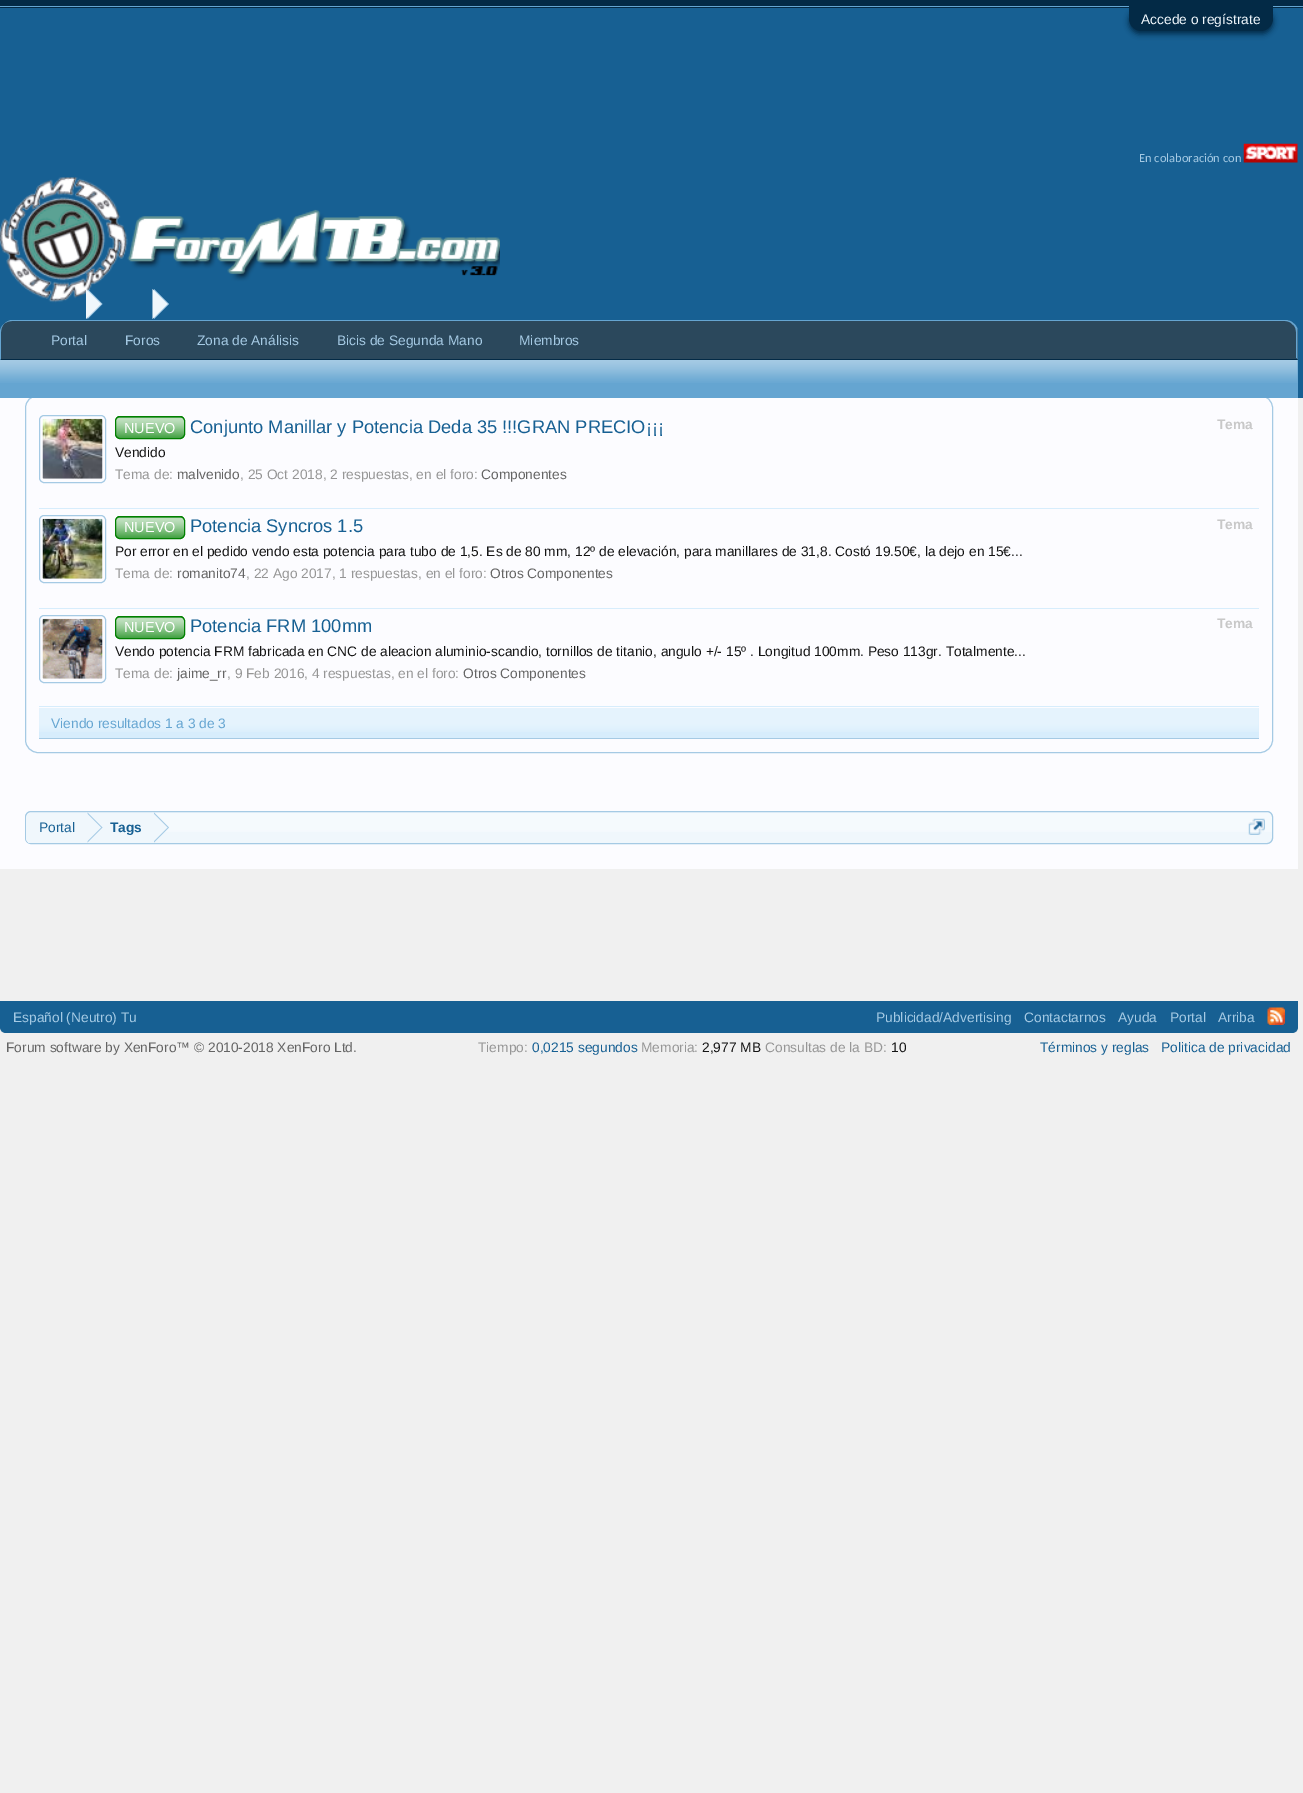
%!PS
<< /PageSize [1303 1793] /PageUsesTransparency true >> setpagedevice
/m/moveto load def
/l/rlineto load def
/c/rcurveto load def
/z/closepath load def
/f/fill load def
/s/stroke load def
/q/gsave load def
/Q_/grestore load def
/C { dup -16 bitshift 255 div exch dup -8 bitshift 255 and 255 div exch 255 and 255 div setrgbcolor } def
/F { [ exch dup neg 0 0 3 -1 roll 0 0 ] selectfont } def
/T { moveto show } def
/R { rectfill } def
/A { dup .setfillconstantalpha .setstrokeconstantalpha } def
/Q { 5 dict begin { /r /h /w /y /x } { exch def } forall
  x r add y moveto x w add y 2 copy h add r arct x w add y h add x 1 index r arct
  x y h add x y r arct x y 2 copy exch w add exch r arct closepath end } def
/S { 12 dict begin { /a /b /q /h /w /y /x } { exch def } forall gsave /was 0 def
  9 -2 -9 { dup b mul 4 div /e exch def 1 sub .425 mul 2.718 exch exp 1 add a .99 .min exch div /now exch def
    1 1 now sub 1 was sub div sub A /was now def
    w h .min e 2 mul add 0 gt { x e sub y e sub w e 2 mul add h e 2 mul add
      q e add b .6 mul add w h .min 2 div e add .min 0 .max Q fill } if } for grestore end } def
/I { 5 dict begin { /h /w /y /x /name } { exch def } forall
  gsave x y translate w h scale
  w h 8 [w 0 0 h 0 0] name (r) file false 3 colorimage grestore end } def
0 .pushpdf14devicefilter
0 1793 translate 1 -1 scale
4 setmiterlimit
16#F0F0F0 C
0 0 1303 1793 R
16#032A46 C
0 0 1303 8 R
16#65A5D1 C
0 6 1303 1 R
16#FCFCFF C
0 398 1298 471 R
16#A5CAE4 C
25.5 395.5 1247 357 12.5 Q s
16#176093 C
0 8 1303 390 R
16#032A46 C
1129 9 144 25 12.5 3 1 S
1129 6 m 144 0 l 0 12.5 l 0 7 -5.5 12.5 -12.5 12.5 c -119 0 l -7 0 -12.5 -5.5 -12.5 -12.5 c z f
/LiberationSans-Regular 13.75 F
16#F0F7FC C
(Accede o regístrate) 1141 24 T
/Carlito-Regular 12.5 F
16#A5CAE4 C
(En colaboración con) 1139 162 T
(1.rgb) 1243 143 55 20 I
(2.rgb) 0 177 500 126 I
16#2B485C C
13 320 m 1272 0 l 7 0 13 6 13 13 c 0 27 l -1298 0 l 0 -27 l 0 -7 6 -13 13 -13 c z f
16#65A5D1 C
12 320 m -3 0 -6 2 -8 4 c 2 -2 5 -3 8 -3 c 1273 0 l 3 0 6 1 8 4 c 1 -1 l -2 -3 -6 -4 -9 -4 c z f
1297.5 329 m 0 31 l -1.5 -1.5 l 0 -26.5 l 0 -3 -1 -5.5 -3 -7.5 c 1 -1 l 1.5 1.5 3 3.5 3.5 5.5 c z f
16#032A46 C
1298 360 m -2 -2 l 0 1 l -1295 0 l -1 1 l z f
16#65A5D1 C
0 360 m 1 -1 l 0 -27 l 0 -3 1 -6 3 -8 c -2.5 2 -4 5 -4 8 c z f
/LiberationSans-Regular 13.75 F
16#A5CAE4 C
(Portal) 51 345 T
(Foros) 125 345 T
(Zona de Análisis) 197 345 T
(Bicis de Segunda Mano) 337 345 T
(Miembros) 519 345 T
16#65A5D1 C
0 360 1298 38 R
(3.rgb) 0 360 1298 23 I
16#A5CAE4 C
87.5 319 m 0 -30 l 15 15 l z f
16#F0F7FC C
86 319 m 0 -30 l 15 15 l z f
16#A5CAE4 C
154 319 m 0 -30 l 15 15 l z f
16#F0F7FC C
152.5 319 m 0 -30 l 15 15 l z f
16#D7EDFC C
39 508 1220 1 R
16#A5CAE4 C
39.5 415.5 66 67 4.5 Q s
(4.rgb) 42 418 61 61 I
16#008000 C
115 416 70 23 5 Q f
(5.rgb) 115 417 70 22 I
115.5 416.5 69 22 4.5 Q s
/LiberationSans-Regular 14.5 F
16#FFFFFF C
(NUEVO) 124 433 T
/LiberationSans-Regular 18.3 F
16#176093 C
(Conjunto Manillar y Potencia Deda 35 !!!GRAN PRECIO¡¡¡) 190 433 T
/LiberationSans-Bold 13.75 F
16#C8C8C8 C
(Tema) 1217 429 T
/LiberationSans-Regular 13.75 F
16#141414 C
(Vendido) 115 457 T
16#969696 C
(Tema de:) 115 479 T
16#646464 C
(malvenido) 177 479 T
16#969696 C
(, 25 Oct 2018, 2 respuestas, en el foro:) 240 479 T
16#646464 C
(Componentes) 481 479 T
16#D7EDFC C
39 608 1220 1 R
16#A5CAE4 C
39.5 515.5 66 67 4.5 Q s
(6.rgb) 42 518 61 61 I
16#008000 C
115 516 70 23 5 Q f
(5.rgb) 115 517 70 22 I
115.5 516.5 69 22 4.5 Q s
/LiberationSans-Regular 14.5 F
16#FFFFFF C
(NUEVO) 124 532 T
/LiberationSans-Regular 18.3 F
16#176093 C
(Potencia Syncros 1.5) 190 532 T
/LiberationSans-Bold 13.75 F
16#C8C8C8 C
(Tema) 1217 529 T
/LiberationSans-Regular 13.75 F
16#141414 C
(Por error en el pedido vendo esta potencia para tubo de 1,5. Es de 80 mm, 12º de elevación, para manillares de 31,8. Costó 19.50€, la dejo en 15€...) 115 556 T
16#969696 C
(Tema de:) 115 578 T
16#646464 C
(romanito74) 177 578 T
16#969696 C
(, 22 Ago 2017, 1 respuestas, en el foro:) 246 578 T
16#646464 C
(Otros Componentes) 490 578 T
16#D7EDFC C
39 706 1220 1 R
16#A5CAE4 C
39.5 615.5 66 67 4.5 Q s
(7.rgb) 42 618 61 61 I
16#008000 C
115 616 70 23 5 Q f
(8.rgb) 115 617 70 22 I
115.5 616.5 69 22 4.5 Q s
/LiberationSans-Regular 14.5 F
16#FFFFFF C
(NUEVO) 124 632 T
/LiberationSans-Regular 18.3 F
16#176093 C
(Potencia FRM 100mm) 190 632 T
/LiberationSans-Bold 13.75 F
16#C8C8C8 C
(Tema) 1217 628 T
/LiberationSans-Regular 13.75 F
16#141414 C
(Vendo potencia FRM fabricada en CNC de aleacion aluminio-scandio, tornillos de titanio, angulo +/- 15º . Longitud 100mm. Peso 113gr. Totalmente...) 115 656 T
16#969696 C
(Tema de:) 115 678 T
16#646464 C
(jaime_rr) 177 678 T
16#969696 C
(, 9 Feb 2016, 4 respuestas, en el foro:) 227 678 T
16#646464 C
(Otros Componentes) 463 678 T
16#D7EDFC C
39 708 1220 30 R
(9.rgb) 39 708 1220 24 I
16#A5CAE4 C
39 738 1220 1 R
16#65A5D1 C
(Viendo resultados 1 a 3 de 3) 51 728 T
16#F0F7FC C
25 811 1248 33 6 Q f
(10.rgb) 25 813 1247 19 I
16#A5CAE4 C
25.5 811.5 1247 32 5.5 Q s
q
26 813 1245 30 5 Q clip newpath
16#F0F7FC C
32 813 m 56 0 l 0 31 l -56 0 l -3.5 0 -6 -2.5 -6 -6 c 0 -19 l 0 -3.5 2.5 -6 6 -6 c z f
Q_
16#176093 C
(Portal) 39 832 T
16#F0F7FC C
88 813 66 19 R
16#A5CAE4 C
87.5 842.5 m 0 -30 l 15 15 l z f
16#F0F7FC C
86 842.5 m 0 -30 l 15 15 l z f
q
110 813 31 30 rectclip
/LiberationSans-Bold 13.75 F
16#176093 C
(Tags) 110 832 T
Q_
16#A5CAE4 C
154 842.5 m 0 -30 l 15 15 l z f
16#F0F7FC C
152.5 842.5 m 0 -30 l 15 15 l z f
(11.rgb) 1248 818 17 17 I
16#176093 C
0 1001 m 1298 0 l 0 26 l 0 3.5 -2.5 6 -6 6 c -1286 0 l -3.5 0 -6 -2.5 -6 -6 c z f
16#A5CAE4 C
(Español \(Neutro\) Tu) 13 1022 T
(Publicidad/Advertising) 876 1022 T
(Contactarnos) 1024 1022 T
(Ayuda) 1118 1022 T
(Portal) 1170 1022 T
(Arriba) 1218 1022 T
(12.rgb) 1267 1007 18 18 I
16#646464 C
(Forum software by XenForo™ © 2010-2018 XenForo Ltd.) 6 1052 T
16#969696 C
(Tiempo:) 478 1052 T
16#176093 C
(0,0215 segundos) 532 1052 T
16#969696 C
(Memoria:) 641 1052 T
16#141414 C
(2,977 MB) 702 1052 T
16#969696 C
(Consultas de la BD:) 765 1052 T
16#141414 C
(10) 891 1052 T
16#176093 C
(Términos y reglas) 1040 1052 T
(Politica de privacidad) 1161 1052 T
.poppdf14devicefilter showpage
